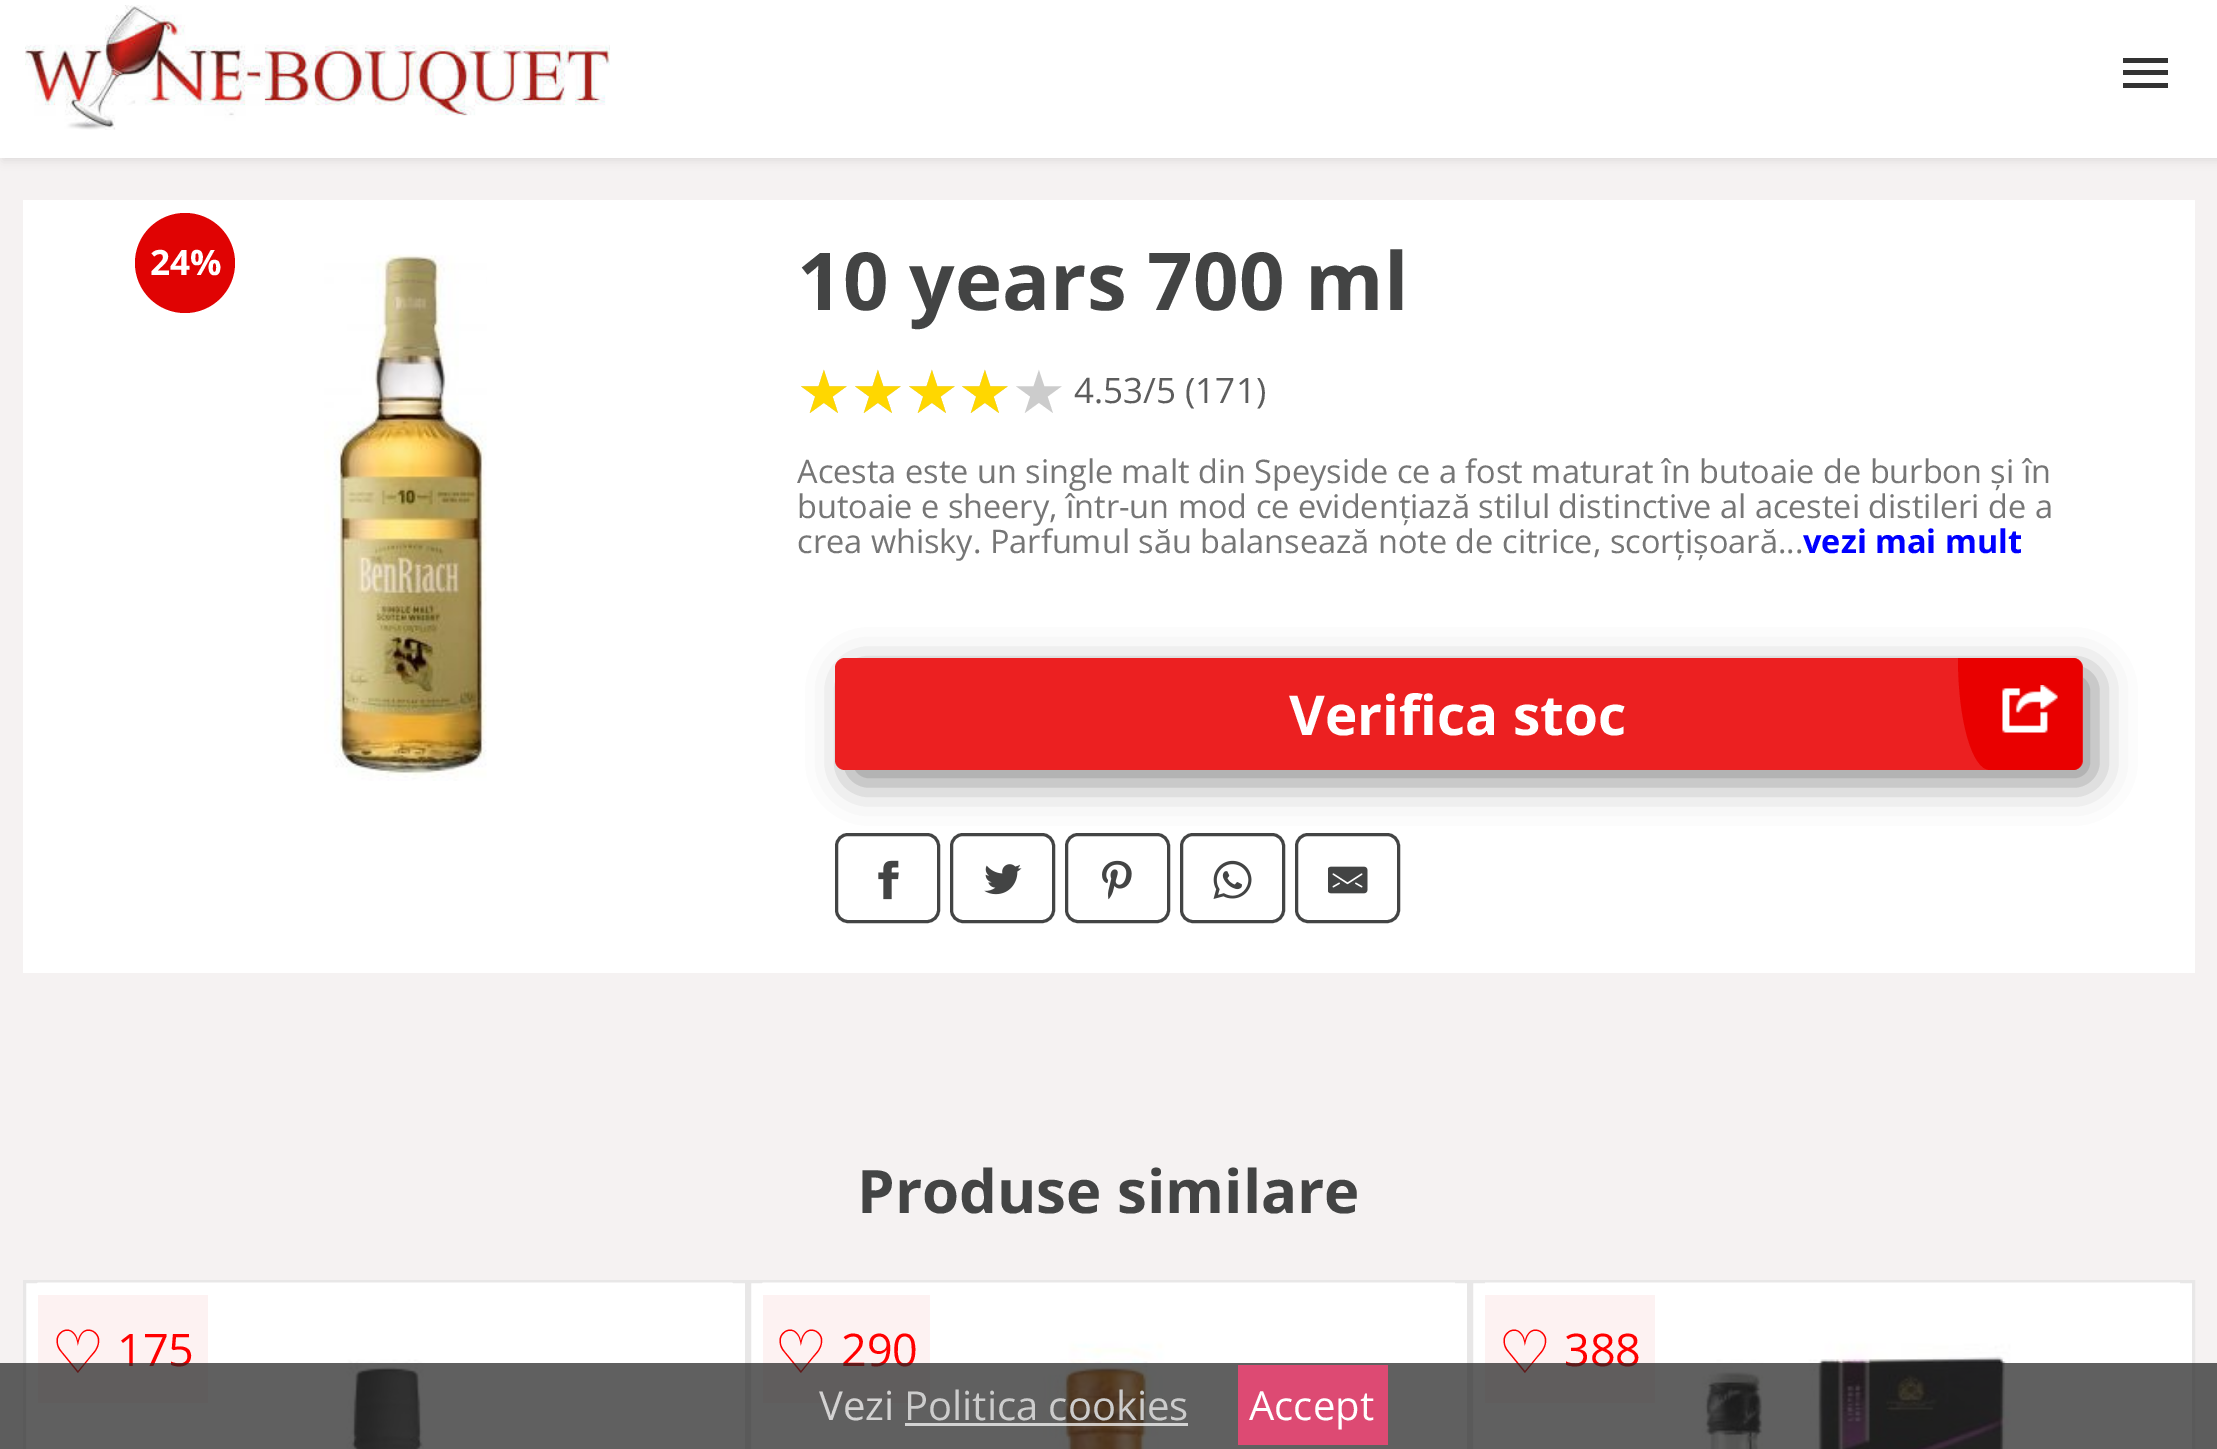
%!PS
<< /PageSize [2217 1449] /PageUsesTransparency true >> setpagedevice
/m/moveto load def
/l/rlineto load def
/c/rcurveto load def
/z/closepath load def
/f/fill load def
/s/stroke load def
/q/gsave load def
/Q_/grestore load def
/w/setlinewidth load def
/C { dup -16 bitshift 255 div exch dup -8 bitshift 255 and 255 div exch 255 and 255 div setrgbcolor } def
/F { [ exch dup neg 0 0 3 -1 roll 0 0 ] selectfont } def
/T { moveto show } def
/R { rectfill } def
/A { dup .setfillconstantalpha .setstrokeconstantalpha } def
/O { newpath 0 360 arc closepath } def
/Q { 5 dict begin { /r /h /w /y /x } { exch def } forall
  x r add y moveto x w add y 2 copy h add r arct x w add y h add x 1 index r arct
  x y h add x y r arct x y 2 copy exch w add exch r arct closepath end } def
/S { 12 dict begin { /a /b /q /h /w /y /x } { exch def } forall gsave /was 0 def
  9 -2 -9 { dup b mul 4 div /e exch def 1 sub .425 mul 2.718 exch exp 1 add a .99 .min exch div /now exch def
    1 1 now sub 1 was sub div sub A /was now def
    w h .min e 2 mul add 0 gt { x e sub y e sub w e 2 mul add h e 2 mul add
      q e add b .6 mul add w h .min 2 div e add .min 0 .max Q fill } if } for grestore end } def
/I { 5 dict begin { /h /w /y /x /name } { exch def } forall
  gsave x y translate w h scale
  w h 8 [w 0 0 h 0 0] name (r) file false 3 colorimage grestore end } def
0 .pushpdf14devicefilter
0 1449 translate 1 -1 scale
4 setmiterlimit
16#F5F2F2 C
0 0 2217 1449 R
16#000000 C
3 3 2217 157 0 5 .1 S
16#FFFFFF C
0 0 2217 158 R
(1.rgb) 25 5 585 125 I
16#333333 C
2123 70 45 5 R
2123 58 45 5 R
2123 83 45 5 R
16#FFFFFF C
23 200 2172 773 R
16#E00303 C
185 263 50 O f
/OpenSans-Bold 35 F
16#FFFFFF C
(24%) 150 275 T
(2.rgb) 324 254 163 527 I
/OpenSans-Bold 80 F
16#434444 C
(10 years 700 ml) 797 310 T
/DejaVuSans-Regular 60 F
16#CCCCCC C
(★★★★★) 797 413 T
16#FFD700 C
(★★★★) 797 413 T
/OpenSans-Regular 35 F
16#5D5D5D C
(4.53/5 \(171\)) 1074 403 T
/OpenSans-Regular 32.5 F
16#767676 C
(Acesta este un single malt din Speyside ce a fost maturat în butoaie de burbon și în) 797 483 T
(butoaie e sheery, într-un mod ce evidențiază stilul distinctive al acestei distileri de a) 797 518 T
(crea whisky. Parfumul său balansează note de citrice, scorțișoară...) 797 553 T
/OpenSans-Bold 32.5 F
16#0000FF C
(vezi mai mult) 1803 553 T
16#272727 C
848 670 1247 113 10 19 .5 S
16#EC2021 C
835 658 1248 112 10 Q f
/OpenSans-Bold 55 F
16#FFFFFF C
(Verifica stoc) 1289 735 T
16#E90000 C
1958 658 m 114 0 l 6 0 10 4 10 10 c 0 92 l 0 6 -4 10 -10 10 c -82 0 l -18 0 -32 -50 -32 -112 c z f
(3.rgb) 2002 685 56 48 I
16#434444 C
3 w
836.5 834.5 102 87 11.5 Q s
(4.rgb) 878 860 21 40 I
951.5 834.5 102 87 11.5 Q s
(5.rgb) 984 864 38 31 I
1066.5 834.5 102 87 11.5 Q s
(6.rgb) 1102 860 30 40 I
1181.5 834.5 102 87 11.5 Q s
(7.rgb) 1213 860 39 39 I
1296.5 834.5 102 87 11.5 Q s
(8.rgb) 1328 866 40 28 I
/OpenSans-Bold 60 F
(Produse similare) 857 1213 T
16#FFFFFF C
24.5 1281.5 m 722 0 l 0 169 l -722 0 l z q f Q_
16#E8E7E7 C
s
(9.rgb) 37 1282 696 167 I
16#FDF2F2 C
38 1295 170 108 R
/DejaVuSans-Regular 60 F
16#FF0000 C
(♡) 51 1373 T
/OpenSans-Regular 45 F
(175) 117 1366 T
16#FFFFFF C
749.5 1281.5 m 719 0 l 0 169 l -719 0 l z q f Q_
16#E8E7E7 C
s
(10.rgb) 762 1282 693 167 I
16#FDF2F2 C
763 1295 167 108 R
/DejaVuSans-Regular 60 F
16#FF0000 C
(♡) 774 1373 T
/OpenSans-Regular 45 F
(290) 841 1366 T
16#FFFFFF C
1471.5 1281.5 m 722 0 l 0 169 l -722 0 l z q f Q_
16#E8E7E7 C
s
(11.rgb) 1485 1282 695 167 I
16#FDF2F2 C
1485 1295 170 108 R
/DejaVuSans-Regular 60 F
16#FF0000 C
(♡) 1498 1373 T
/OpenSans-Regular 45 F
(388) 1564 1366 T
0.72 A
16#232323 C
0 1363 2217 86 R
/OpenSans-Regular 40 F
1 A
16#D3D2D2 C
(Vezi) 819 1420 T
16#CCCCCC C
(Politica cookies) 904 1420 T
0.72 A
16#FFFFFF C
905 1423 283 3 R
1 A
16#DD4A73 C
1238 1365 150 80 R
16#FFFFFF C
(Accept) 1249 1420 T
.poppdf14devicefilter showpage
